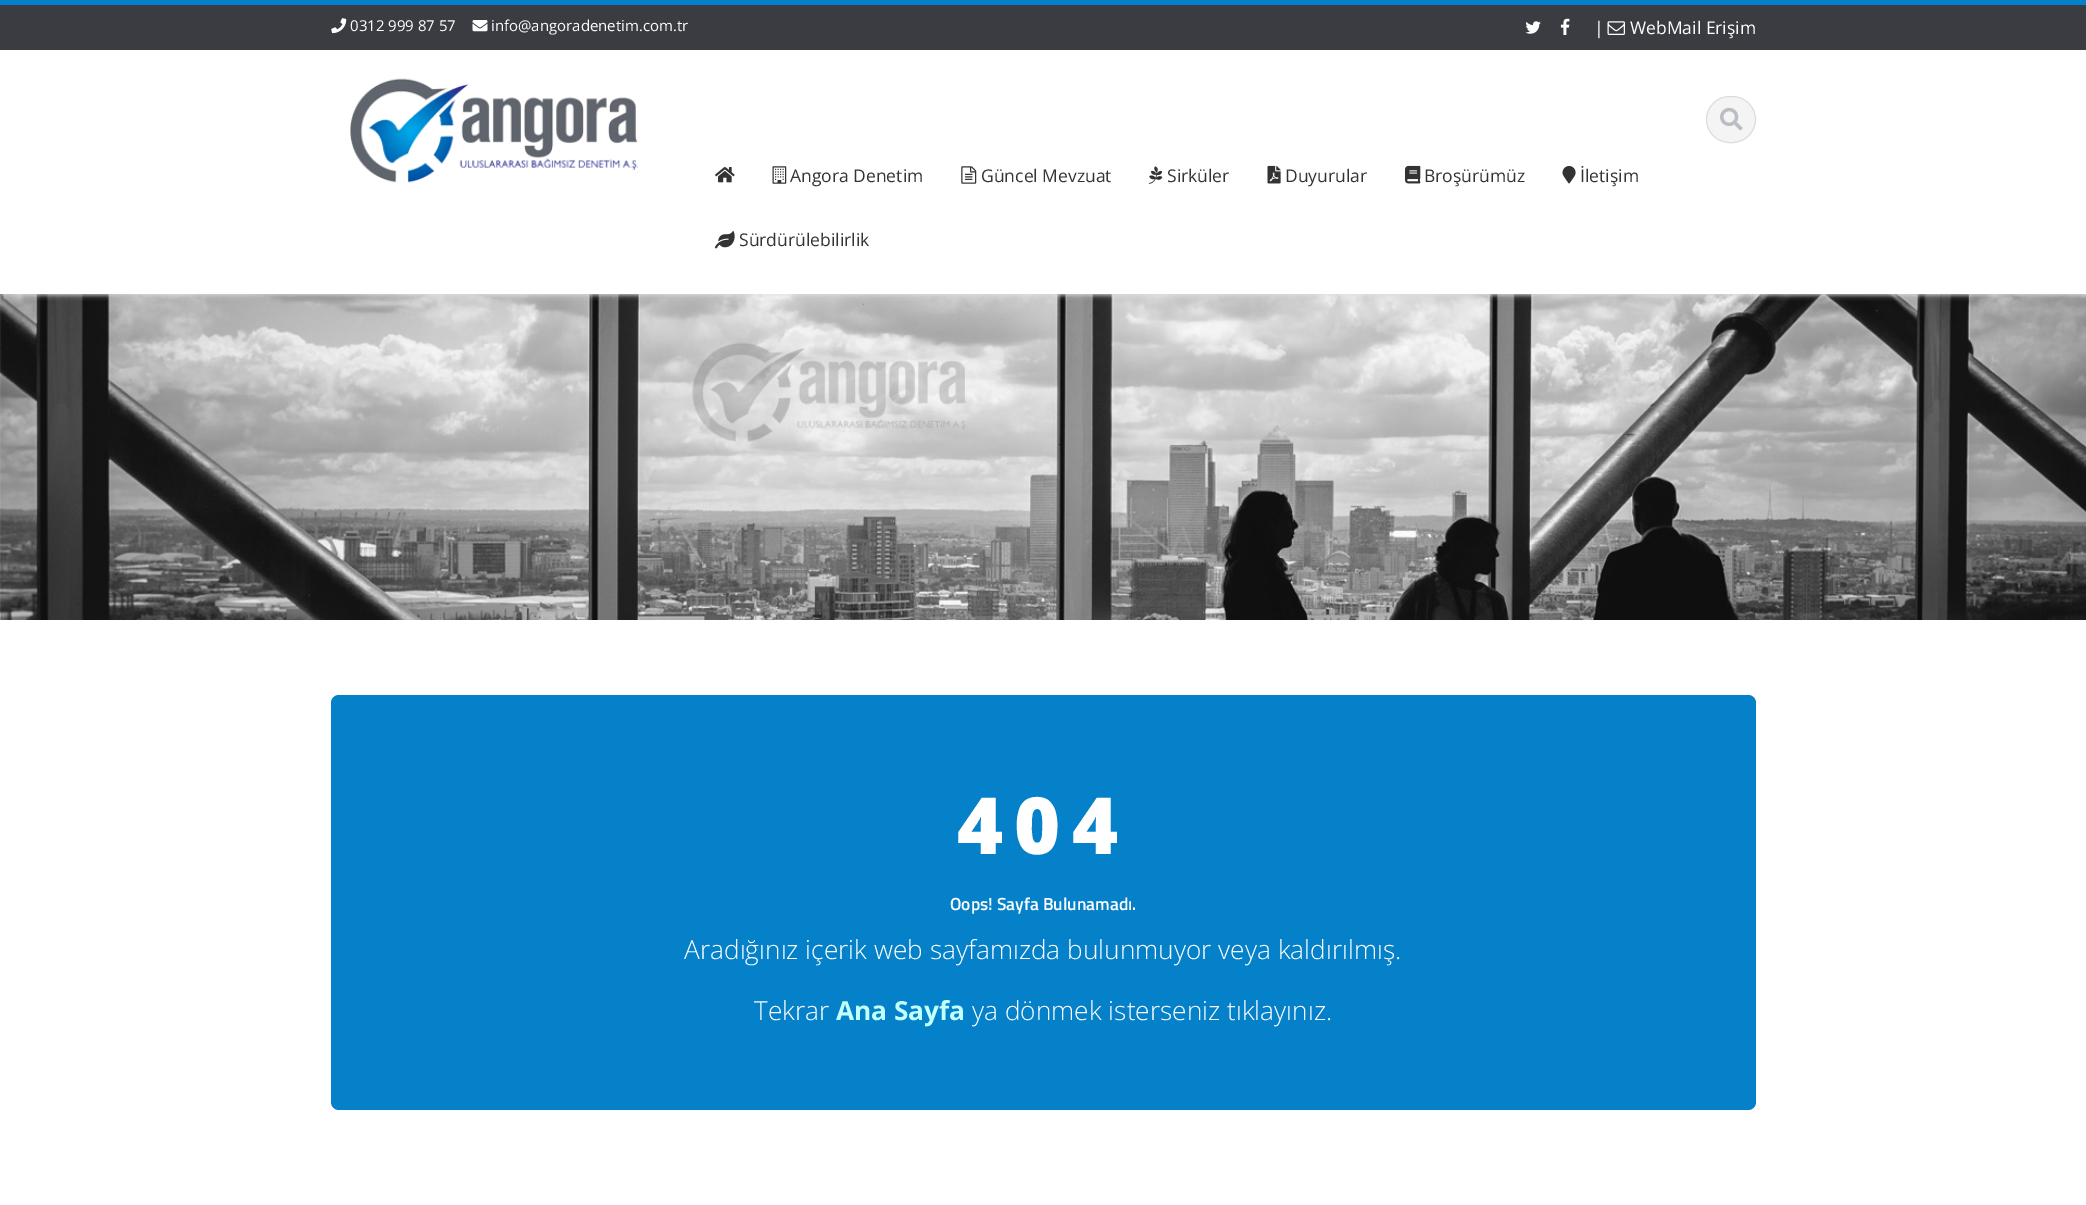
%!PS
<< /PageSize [2086 1205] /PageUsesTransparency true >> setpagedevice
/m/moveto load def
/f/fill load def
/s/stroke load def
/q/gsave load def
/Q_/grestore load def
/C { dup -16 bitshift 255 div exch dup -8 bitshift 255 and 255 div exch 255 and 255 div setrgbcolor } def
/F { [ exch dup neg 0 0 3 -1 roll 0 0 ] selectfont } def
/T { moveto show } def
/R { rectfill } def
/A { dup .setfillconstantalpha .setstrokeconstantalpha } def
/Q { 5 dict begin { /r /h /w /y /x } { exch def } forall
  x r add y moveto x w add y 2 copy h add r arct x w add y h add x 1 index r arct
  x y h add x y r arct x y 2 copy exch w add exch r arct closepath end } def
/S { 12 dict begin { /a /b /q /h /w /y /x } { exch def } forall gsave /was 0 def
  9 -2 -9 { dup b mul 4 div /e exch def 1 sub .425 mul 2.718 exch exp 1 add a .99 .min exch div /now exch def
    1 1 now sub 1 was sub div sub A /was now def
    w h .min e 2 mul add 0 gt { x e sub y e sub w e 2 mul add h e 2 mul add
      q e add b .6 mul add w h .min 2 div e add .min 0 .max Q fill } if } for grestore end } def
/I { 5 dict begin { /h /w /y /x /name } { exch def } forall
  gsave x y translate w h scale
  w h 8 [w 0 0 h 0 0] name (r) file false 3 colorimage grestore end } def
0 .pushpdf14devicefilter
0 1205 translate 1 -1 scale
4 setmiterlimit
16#FFFFFF C
0 0 2086 1205 R
(16.rgb) 0 294 2086 326 I
16#DDDDDD C
1 1 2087 294 0 2.5 1 S
16#3A3C41 C
0 5 2086 45 R
16#0481C9 C
0 0 2086 5 R
(1.rgb) 331 18 16 16 I
/OpenSans-Regular 15 F
16#FFFFFF C
(0312 999 87 57) 350 31 T
(2.rgb) 472 20 16 12 I
(info@angoradenetim.com.tr) 491 31 T
(3.rgb) 1525 21 16 13 I
(4.rgb) 1560 18 10 17 I
/OpenSans-Regular 17.5 F
(|) 1594 34 T
(5.rgb) 1607 21 18 14 I
(WebMail Erişim) 1630 34 T
0 50 2086 244 R
(6.rgb) 350 78 288 105 I
16#F4F4F4 C
1706.5 96.5 49 46 23 Q q f Q_
16#DDDDDD C
s
(7.rgb) 1720 107 23 24 I
(8.rgb) 715 167 20 16 I
(9.rgb) 772 166 15 18 I
16#333333 C
(Angora Denetim) 790 182 T
(10.rgb) 961 166 16 18 I
(Güncel Mevzuat) 981 182 T
(11.rgb) 1148 166 15 18 I
(Sirküler) 1167 182 T
(12.rgb) 1267 165 14 19 I
(Duyurular) 1285 182 T
(13.rgb) 1405 165 16 19 I
(Broşürümüz) 1424 182 T
(14.rgb) 1562 166 14 18 I
(İletişim) 1580 182 T
(15.rgb) 715 231 20 18 I
(Sürdürülebilirlik) 739 246 T
16#0481C9 C
331 695 1425 415 8 Q f
/OpenSans-ExtraBold 79 F
16#FFFFFF C
957 854 m 11 0 (404) ashow
/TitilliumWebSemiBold-SemiBold 17.5 F
(Oops! Sayfa Bulunamadı.) 950 910 T
/OpenSans-Light 26.25 F
(Aradığınız içerik web sayfamızda bulunmuyor veya kaldırılmış.) 684 959 T
(Tekrar) 754 1020 T
/OpenSans-Bold 26.25 F
16#C2FFFF C
(Ana Sayfa) 836 1020 T
/OpenSans-Light 26.25 F
16#FFFFFF C
(ya dönmek isterseniz tıklayınız.) 972 1020 T
.poppdf14devicefilter showpage
